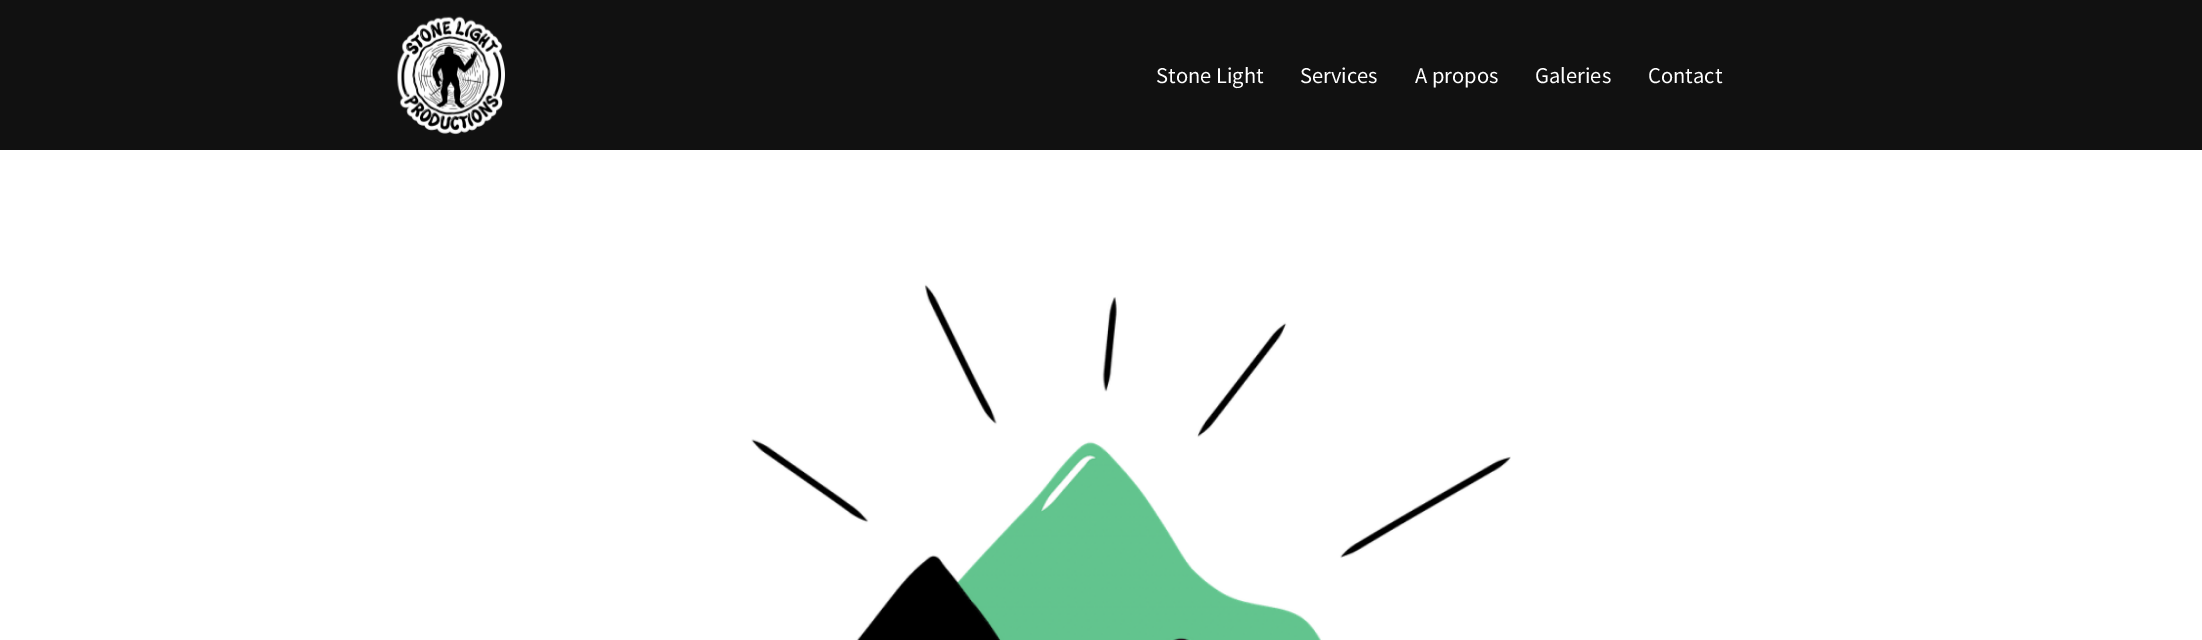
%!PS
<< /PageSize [2202 640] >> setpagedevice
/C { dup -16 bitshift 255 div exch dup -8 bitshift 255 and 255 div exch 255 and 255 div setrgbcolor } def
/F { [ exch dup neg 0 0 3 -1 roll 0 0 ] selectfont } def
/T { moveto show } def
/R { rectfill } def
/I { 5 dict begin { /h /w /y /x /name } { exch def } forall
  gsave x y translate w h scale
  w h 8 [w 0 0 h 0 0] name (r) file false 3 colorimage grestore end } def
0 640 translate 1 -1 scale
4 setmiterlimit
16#FFFFFF C
0 0 2202 640 R
16#111111 C
0 0 2202 150 R
(1.rgb) 397 16 108 119 I
/SourceSansPro-Regular 22.5 F
16#FFFFFF C
(Stone Light) 1156 83 T
(Services) 1300 83 T
(A propos) 1415 83 T
(Galeries) 1535 83 T
(Contact) 1648 83 T
(2.rgb) 751 284 760 356 I
showpage
